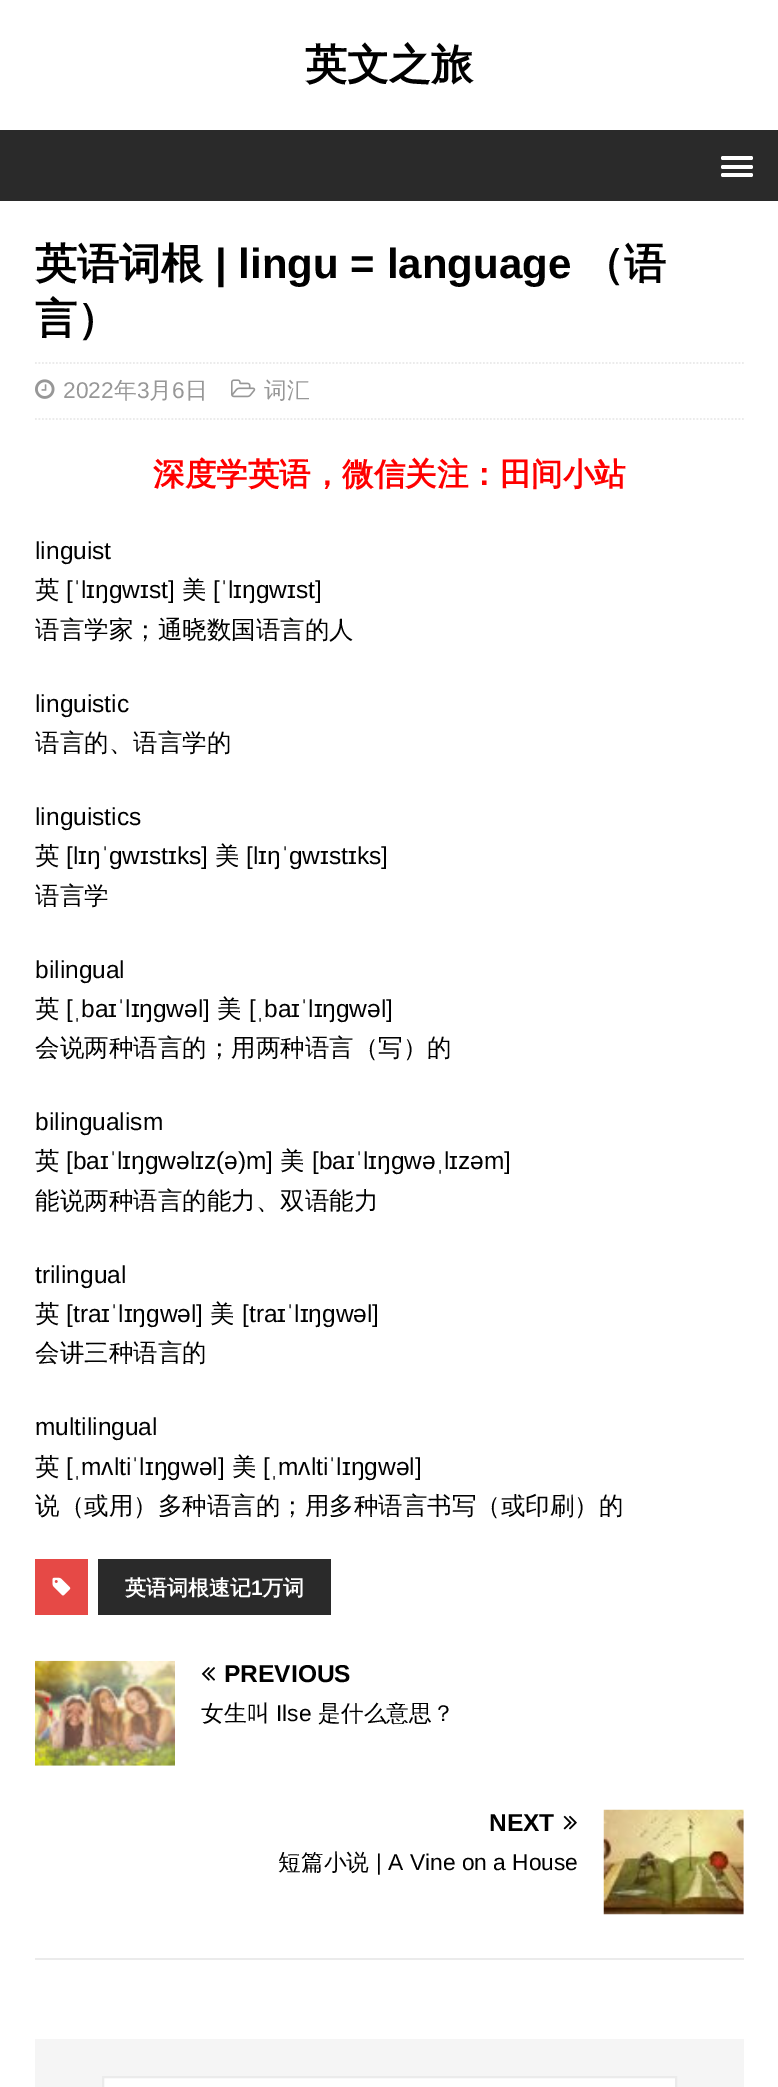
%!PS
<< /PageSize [778 2087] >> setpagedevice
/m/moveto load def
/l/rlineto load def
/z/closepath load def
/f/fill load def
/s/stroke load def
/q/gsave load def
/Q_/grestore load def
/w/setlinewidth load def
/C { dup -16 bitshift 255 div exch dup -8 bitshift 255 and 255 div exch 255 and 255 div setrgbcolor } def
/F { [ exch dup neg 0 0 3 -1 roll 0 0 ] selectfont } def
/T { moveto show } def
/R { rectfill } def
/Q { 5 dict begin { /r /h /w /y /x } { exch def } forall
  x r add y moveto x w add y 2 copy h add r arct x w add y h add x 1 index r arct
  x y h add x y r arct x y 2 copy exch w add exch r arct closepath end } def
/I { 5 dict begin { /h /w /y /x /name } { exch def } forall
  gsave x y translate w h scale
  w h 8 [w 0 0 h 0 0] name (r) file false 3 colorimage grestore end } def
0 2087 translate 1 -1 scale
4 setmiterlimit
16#FFFFFF C
0 0 778 2087 R
/WenQuanYiZenHei-Bold 42 F
16#000000 C
(英文之旅) 305 79 T
16#2A2A2A C
0 130 778 71 R
16#FFFFFF C
721 156 32 4 2 Q f
721 165 32 4 2 Q f
721 173 32 4 2 Q f
16#000000 C
(英语词根) 35 278 T
/LiberationSans-Bold 42 F
(| lingu = language) 215 278 T
/WenQuanYiZenHei-Bold 42 F
(（语) 582 278 T
(言）) 35 333 T
16#EBEBEB C
1.8 w
[1.75 1.75] 0 setdash
35 363 m 709 0 l s
35 419 m 709 0 l s
(1.rgb) 35 379 20 20 I
/LiberationSans-Regular 22.75 F
16#979797 C
(2022) 63 398 T
/WenQuanYiZenHei-Medium 22.75 F
(年) 114 398 T
/LiberationSans-Regular 22.75 F
(3) 137 398 T
/WenQuanYiZenHei-Medium 22.75 F
(月) 149 398 T
/LiberationSans-Regular 22.75 F
(6) 172 398 T
/WenQuanYiZenHei-Medium 22.75 F
(日) 185 398 T
(2.rgb) 231 379 25 19 I
(词汇) 264 398 T
/WenQuanYiZenHei-Bold 31.5 F
16#FF0000 C
(深度学英语，微信关注：田间小站) 153 485 T
/LiberationSans-Regular 24.5 F
16#000000 C
(linguist) 35 559 T
/WenQuanYiZenHei-Medium 24.5 F
(英) 35 598 T
/LiberationSans-Regular 24.5 F
([ˈlɪŋɡwɪst]) 66 598 T
/WenQuanYiZenHei-Medium 24.5 F
(美) 182 598 T
/LiberationSans-Regular 24.5 F
([ˈlɪŋɡwɪst]) 213 598 T
/WenQuanYiZenHei-Medium 24.5 F
(语言学家；通晓数国语言的人) 35 638 T
/LiberationSans-Regular 24.5 F
(linguistic) 35 712 T
/WenQuanYiZenHei-Medium 24.5 F
(语言的、语言学的) 35 751 T
/LiberationSans-Regular 24.5 F
(linguistics) 35 825 T
/WenQuanYiZenHei-Medium 24.5 F
(英) 35 864 T
/LiberationSans-Regular 24.5 F
([lɪŋˈɡwɪstɪks]) 66 864 T
/WenQuanYiZenHei-Medium 24.5 F
(美) 215 864 T
/LiberationSans-Regular 24.5 F
([lɪŋˈɡwɪstɪks]) 246 864 T
/WenQuanYiZenHei-Medium 24.5 F
(语言学) 35 904 T
/LiberationSans-Regular 24.5 F
(bilingual) 35 978 T
/WenQuanYiZenHei-Medium 24.5 F
(英) 35 1017 T
/LiberationSans-Regular 24.5 F
([ˌbaɪˈlɪŋɡwəl]) 66 1017 T
/WenQuanYiZenHei-Medium 24.5 F
(美) 217 1017 T
/LiberationSans-Regular 24.5 F
([ˌbaɪˈlɪŋɡwəl]) 249 1017 T
/WenQuanYiZenHei-Medium 24.5 F
(会说两种语言的；用两种语言（写）的) 35 1056 T
/LiberationSans-Regular 24.5 F
(bilingualism) 35 1130 T
/WenQuanYiZenHei-Medium 24.5 F
(英) 35 1169 T
/LiberationSans-Regular 24.5 F
([baɪˈlɪŋgwəlɪz\(ə\)m]) 66 1169 T
/WenQuanYiZenHei-Medium 24.5 F
(美) 280 1169 T
/LiberationSans-Regular 24.5 F
([baɪˈlɪŋgwəˌlɪzəm]) 312 1169 T
/WenQuanYiZenHei-Medium 24.5 F
(能说两种语言的能力、双语能力) 35 1209 T
/LiberationSans-Regular 24.5 F
(trilingual) 35 1283 T
/WenQuanYiZenHei-Medium 24.5 F
(英) 35 1322 T
/LiberationSans-Regular 24.5 F
([traɪˈlɪŋɡwəl]) 66 1322 T
/WenQuanYiZenHei-Medium 24.5 F
(美) 210 1322 T
/LiberationSans-Regular 24.5 F
([traɪˈlɪŋɡwəl]) 242 1322 T
/WenQuanYiZenHei-Medium 24.5 F
(会讲三种语言的) 35 1361 T
/LiberationSans-Regular 24.5 F
(multilingual) 35 1435 T
/WenQuanYiZenHei-Medium 24.5 F
(英) 35 1475 T
/LiberationSans-Regular 24.5 F
([ˌmʌltiˈlɪŋɡwəl]) 66 1475 T
/WenQuanYiZenHei-Medium 24.5 F
(美) 232 1475 T
/LiberationSans-Regular 24.5 F
([ˌmʌltiˈlɪŋɡwəl]) 263 1475 T
/WenQuanYiZenHei-Medium 24.5 F
(说（或用）多种语言的；用多种语言书写（或印刷）的) 35 1514 T
16#E64946 C
35 1559 53 56 R
(3.rgb) 52 1577 19 19 I
16#2A2A2A C
98 1559 233 56 R
/WenQuanYiZenHei-Bold 21 F
16#FFFFFF C
(英语词根速记) 125 1595 T
/LiberationSans-Bold 21 F
(1) 251 1595 T
/WenQuanYiZenHei-Bold 21 F
(万词) 262 1595 T
16#EBEBEB C
35 1958 709 2 R
(4.rgb) 35 1660 140 106 I
(5.rgb) 201 1667 14 14 I
/LiberationSans-Bold 24.5 F
16#000000 C
(PREVIOUS) 224 1682 T
/WenQuanYiZenHei-Medium 22.75 F
(女生叫) 201 1721 T
/LiberationSans-Regular 22.75 F
(Ilse) 276 1721 T
/WenQuanYiZenHei-Medium 22.75 F
(是什么意思？) 318 1721 T
/LiberationSans-Bold 24.5 F
(NEXT) 489 1831 T
(6.rgb) 563 1815 14 15 I
(7.rgb) 603 1809 141 106 I
/WenQuanYiZenHei-Medium 22.75 F
(短篇小说) 278 1870 T
/LiberationSans-Regular 22.75 F
(| A Vine on a House) 376 1870 T
16#F5F5F5 C
35 2039 709 48 R
16#FFFFFF C
103 2077 m 573 0 l 0 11 l -573 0 l z q f Q_
16#EBEBEB C
2 w
[] 0 setdash
s
showpage
